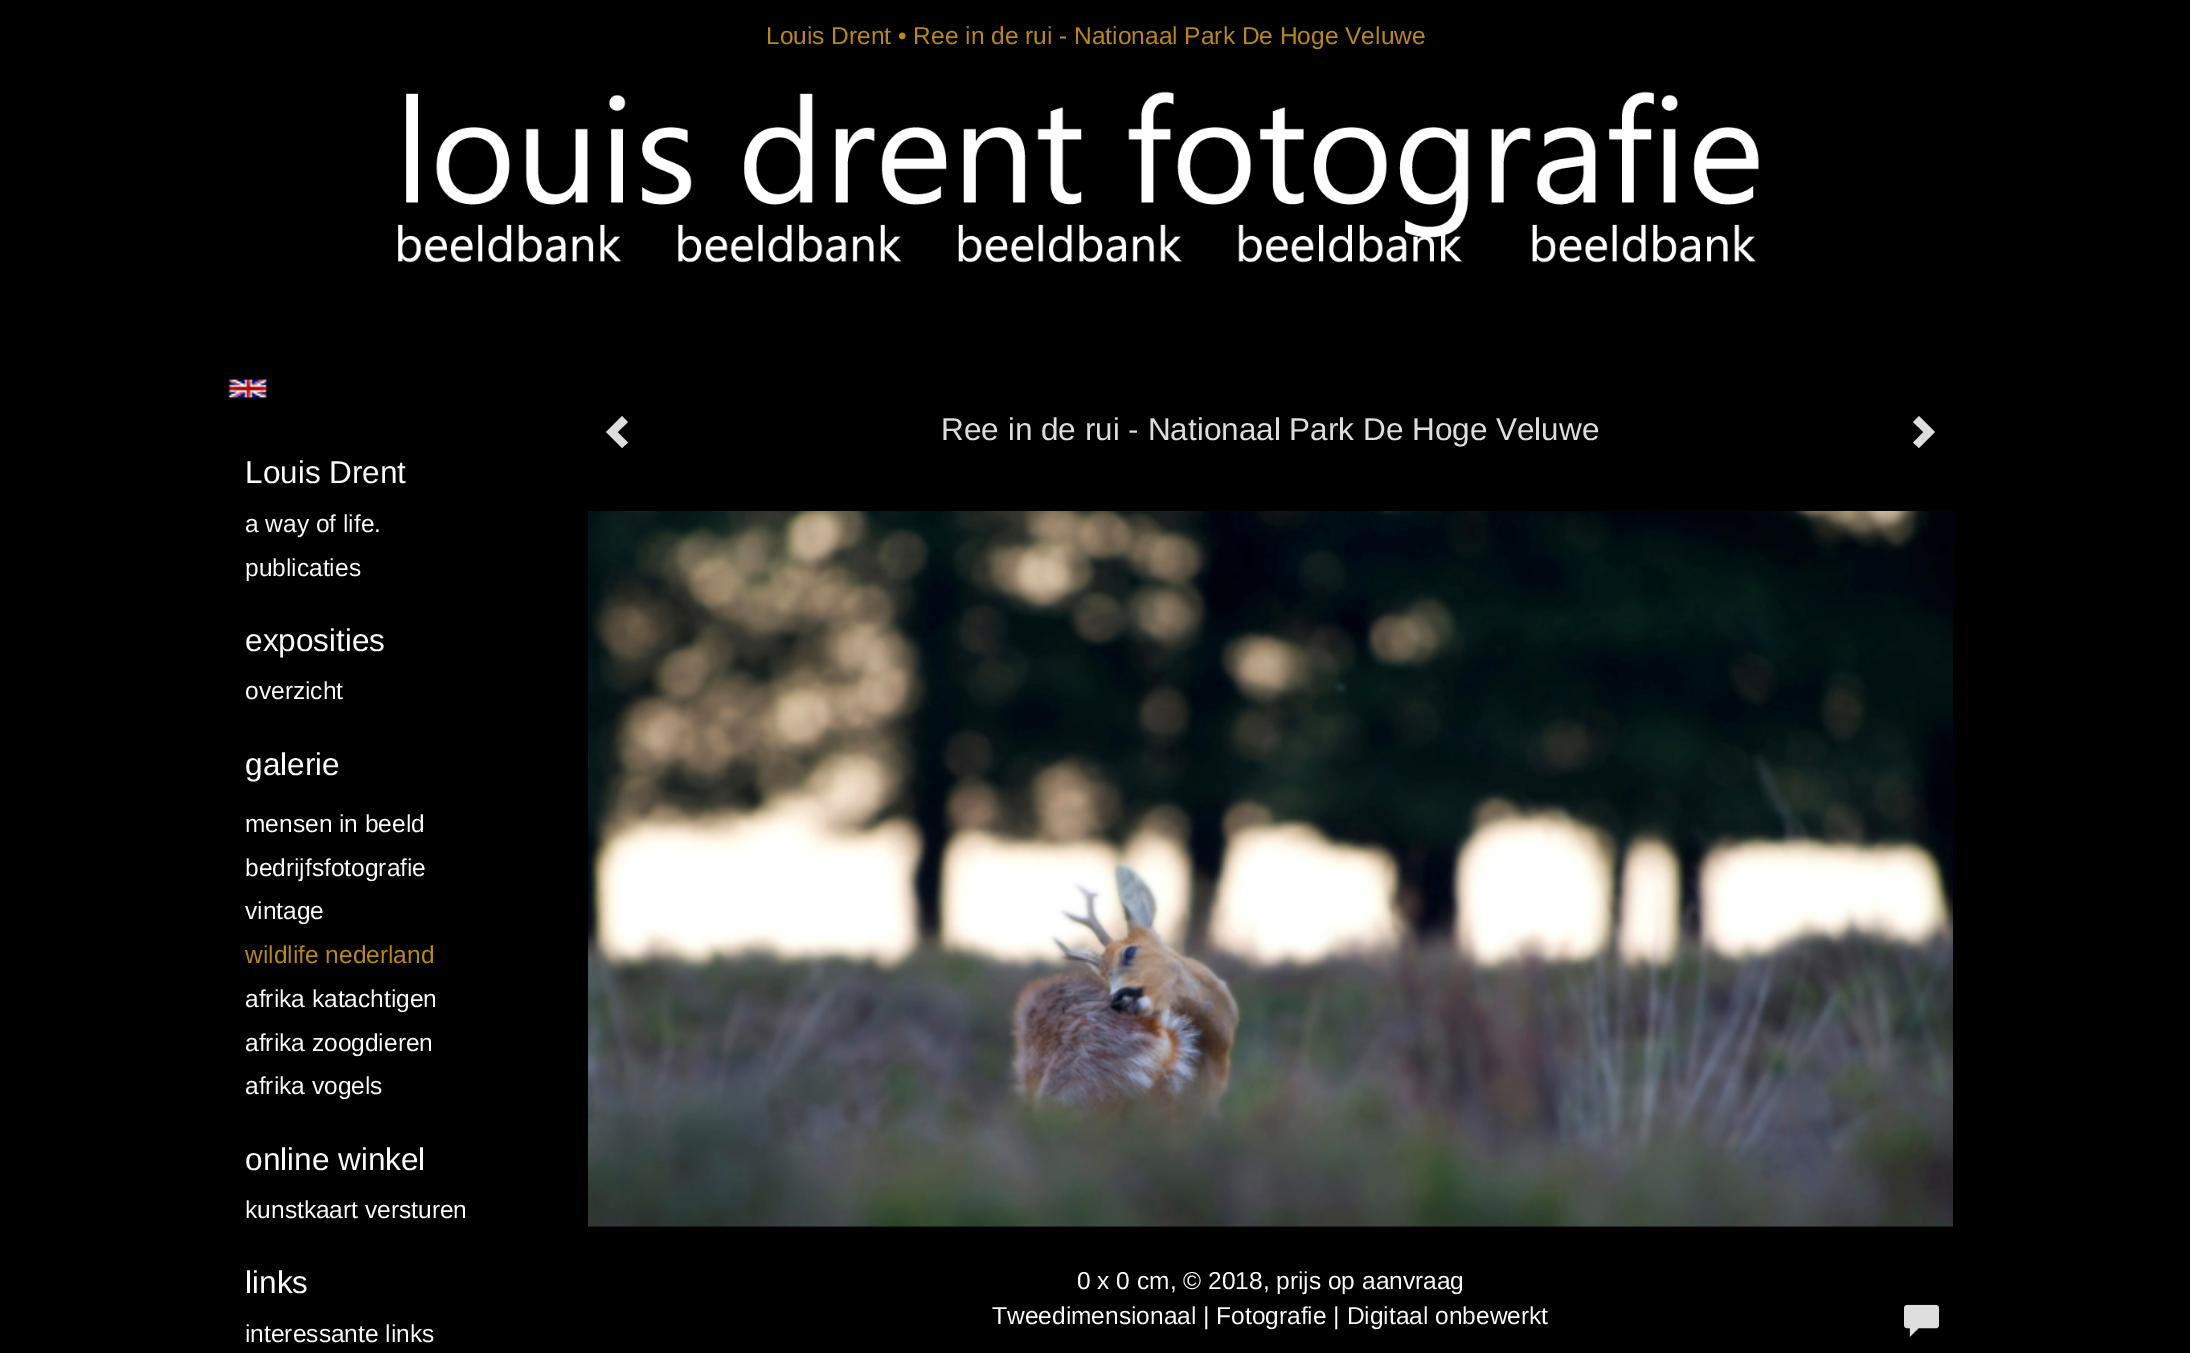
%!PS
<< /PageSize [2190 1353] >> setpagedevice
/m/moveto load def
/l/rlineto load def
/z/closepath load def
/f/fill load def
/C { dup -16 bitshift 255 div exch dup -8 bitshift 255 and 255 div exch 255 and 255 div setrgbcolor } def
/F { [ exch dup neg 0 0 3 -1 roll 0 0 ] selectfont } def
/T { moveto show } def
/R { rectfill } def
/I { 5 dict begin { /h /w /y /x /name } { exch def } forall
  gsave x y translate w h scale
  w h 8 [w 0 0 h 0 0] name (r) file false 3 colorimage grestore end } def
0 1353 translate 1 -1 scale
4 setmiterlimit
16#000000 C
0 0 2190 1353 R
/LiberationSans-Regular 24.5 F
16#B98914 C
(Louis Drent • Ree in de rui - Nationaal Park De Hoge Veluwe) 766 44 T
(1.rgb) 398 91 1361 172 I
(2.rgb) 228 378 40 21 I
/LiberationSans-Regular 31.5 F
16#FBFBFB C
(Louis Drent) 245 483 T
/LiberationSans-Regular 24.5 F
(a way of life.) 245 532 T
(publicaties) 245 576 T
/LiberationSans-Regular 31.5 F
(exposities) 245 651 T
/LiberationSans-Regular 24.5 F
(overzicht) 245 699 T
/LiberationSans-Regular 31.5 F
(galerie) 245 775 T
/LiberationSans-Regular 24.5 F
(mensen in beeld) 245 832 T
(bedrijfsfotografie) 245 876 T
(vintage) 245 919 T
16#B98914 C
(wildlife nederland) 245 963 T
16#FBFBFB C
(afrika katachtigen) 245 1007 T
(afrika zoogdieren) 245 1051 T
(afrika vogels) 245 1094 T
/LiberationSans-Regular 31.5 F
(online winkel) 245 1170 T
/LiberationSans-Regular 24.5 F
(kunstkaart versturen) 245 1218 T
/LiberationSans-Regular 31.5 F
(links) 245 1293 T
/LiberationSans-Regular 24.5 F
(interessante links) 245 1342 T
16#DDDDDD C
628 422 m -10.5 10 l 10.5 10.5 l -6 5.5 l -16 -16 l 16 -16 l z f
/LiberationSans-Regular 31.5 F
(Ree in de rui - Nationaal Park De Hoge Veluwe) 941 440 T
1935 432 m -16 16 l -6 -5.5 l 10.5 -10.5 l -10.5 -10 l 6 -6 l z f
(3.rgb) 588 511 1365 716 I
/LiberationSans-Regular 24.5 F
16#FBFBFB C
(0 x 0 cm, © 2018, prijs op aanvraag) 1077 1289 T
(Tweedimensionaal | Fotografie | Digitaal onbewerkt) 992 1324 T
(4.rgb) 1904 1304 35 33 I
showpage
